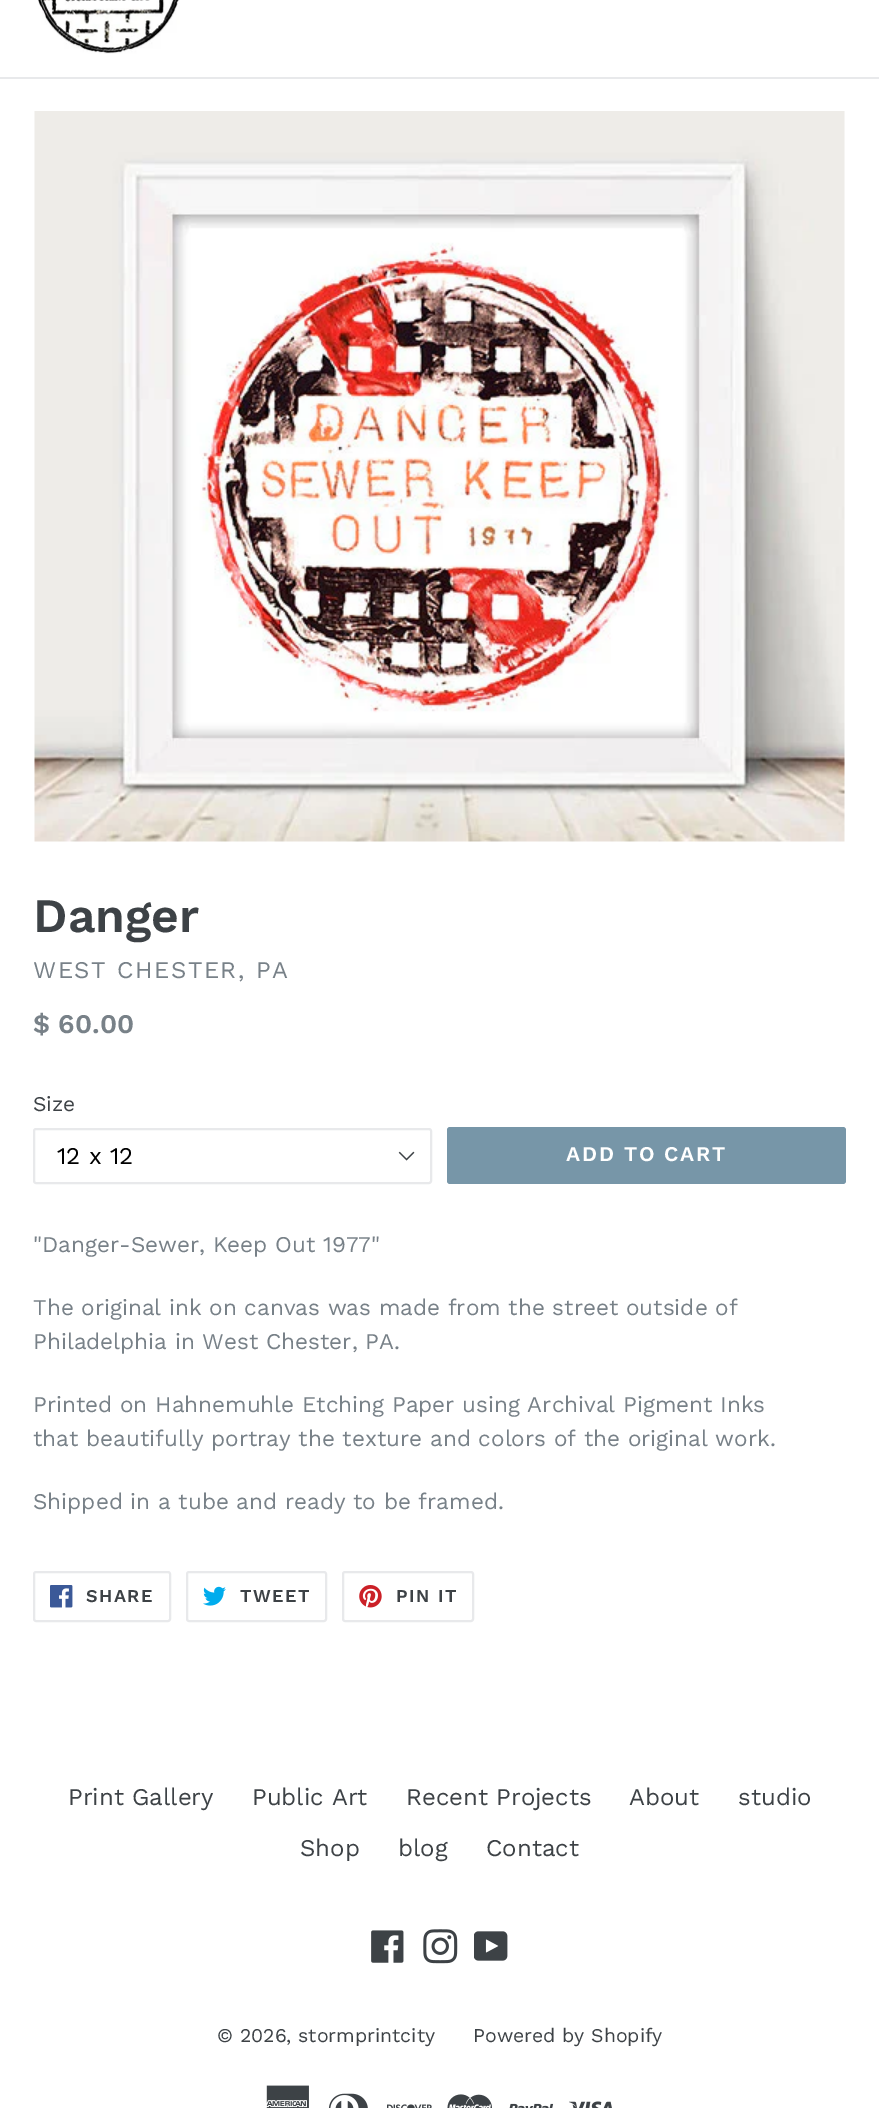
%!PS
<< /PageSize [879 2108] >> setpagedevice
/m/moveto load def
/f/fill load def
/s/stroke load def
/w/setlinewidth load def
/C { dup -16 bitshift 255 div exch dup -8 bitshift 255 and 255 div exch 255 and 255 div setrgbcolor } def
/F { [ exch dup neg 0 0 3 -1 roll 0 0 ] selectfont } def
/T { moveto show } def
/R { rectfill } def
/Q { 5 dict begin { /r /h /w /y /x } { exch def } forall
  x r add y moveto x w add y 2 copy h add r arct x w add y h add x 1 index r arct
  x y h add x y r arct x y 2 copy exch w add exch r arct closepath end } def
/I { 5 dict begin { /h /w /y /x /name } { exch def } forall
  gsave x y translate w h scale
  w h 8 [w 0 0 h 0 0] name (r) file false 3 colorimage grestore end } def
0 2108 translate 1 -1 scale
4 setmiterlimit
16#FFFFFF C
0 0 879 2108 R
16#E8E9EB C
0 77 879 2 R
(1.rgb) 38 0 142 54 I
(2.rgb) 34 111 811 731 I
/WorkSans-SemiBold 48 F
16#3D4246 C
(Danger) 33 932 T
/WorkSans-Regular 24 F
16#788188 C
33 978 m 1.5 0 (WEST CHESTER, PA) ashow
/WorkSans-SemiBold 27 F
($ 60.00) 33 1033 T
/WorkSans-Regular 21 F
16#3D4246 C
(Size) 33 1111 T
(3.rgb) 398 1151 17 10 I
16#E8E9EB C
2 w
34 1129 397 54 2 Q s
/WorkSans-Regular 24 F
16#000000 C
(12 x 12) 57 1164 T
16#7796A8 C
447 1127 399 57 3 Q f
/WorkSans-SemiBold 21 F
16#FFFFFF C
566 1161 m 1.75 0 (ADD TO CART) ashow
/WorkSans-Regular 22.5 F
16#788188 C
("Danger-Sewer, Keep Out 1977") 33 1252 T
(The original ink on canvas was made from the street outside of) 33 1315 T
(Philadelphia in West Chester, PA.) 33 1349 T
(Printed on Hahnemuhle Etching Paper using Archival Pigment Inks) 33 1412 T
(that beautifully portray the texture and colors of the original work.) 33 1446 T
(Shipped in a tube and ready to be framed.) 33 1509 T
16#E8E9EB C
34 1572 136 49 2 Q s
(4.rgb) 50 1585 23 23 I
/WorkSans-SemiBold 18 F
16#3D4246 C
86 1602 m 1.5 0 (SHARE) ashow
16#E8E9EB C
187 1572 139 49 2 Q s
(5.rgb) 203 1586 23 20 I
16#3D4246 C
240 1602 m 1.5 0 (TWEET) ashow
16#E8E9EB C
343 1572 130 49 2 Q s
(6.rgb) 359 1585 23 23 I
16#3D4246 C
396 1602 m 1.5 0 (PIN IT) ashow
/WorkSans-Regular 24 F
(Print Gallery) 68 1805 T
(Public Art) 252 1805 T
(Recent Projects) 406 1805 T
(About) 629 1805 T
(studio) 738 1805 T
(Shop) 300 1856 T
(blog) 398 1856 T
(Contact) 486 1856 T
(7.rgb) 371 1930 33 33 I
(8.rgb) 423 1929 35 35 I
(9.rgb) 474 1931 34 30 I
/WorkSans-Regular 19.5 F
(© 2026, stormprintcity) 217 2042 T
(Powered by Shopify) 473 2042 T
(10.rgb) 266 2085 43 23 I
(11.rgb) 328 2093 40 15 I
(12.rgb) 387 2104 45 4 I
(13.rgb) 447 2094 45 14 I
(14.rgb) 509 2103 45 5 I
(15.rgb) 569 2101 43 7 I
showpage
